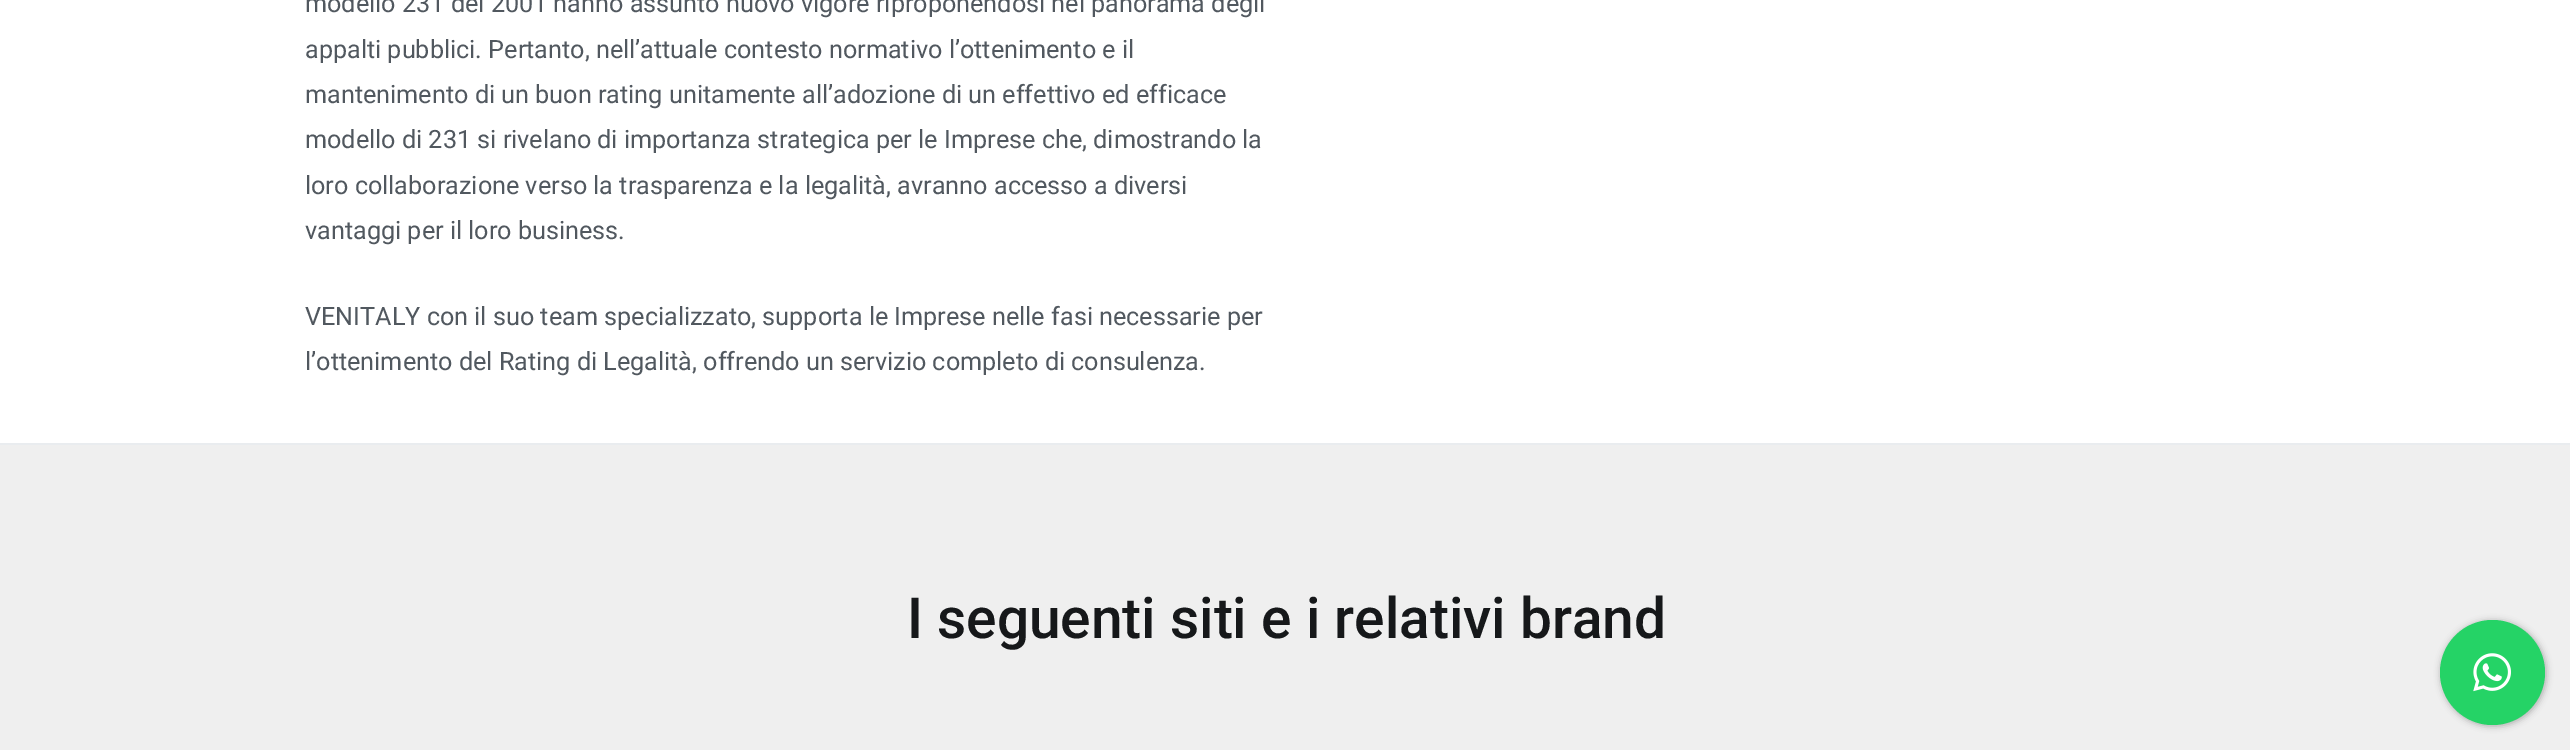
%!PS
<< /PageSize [2570 750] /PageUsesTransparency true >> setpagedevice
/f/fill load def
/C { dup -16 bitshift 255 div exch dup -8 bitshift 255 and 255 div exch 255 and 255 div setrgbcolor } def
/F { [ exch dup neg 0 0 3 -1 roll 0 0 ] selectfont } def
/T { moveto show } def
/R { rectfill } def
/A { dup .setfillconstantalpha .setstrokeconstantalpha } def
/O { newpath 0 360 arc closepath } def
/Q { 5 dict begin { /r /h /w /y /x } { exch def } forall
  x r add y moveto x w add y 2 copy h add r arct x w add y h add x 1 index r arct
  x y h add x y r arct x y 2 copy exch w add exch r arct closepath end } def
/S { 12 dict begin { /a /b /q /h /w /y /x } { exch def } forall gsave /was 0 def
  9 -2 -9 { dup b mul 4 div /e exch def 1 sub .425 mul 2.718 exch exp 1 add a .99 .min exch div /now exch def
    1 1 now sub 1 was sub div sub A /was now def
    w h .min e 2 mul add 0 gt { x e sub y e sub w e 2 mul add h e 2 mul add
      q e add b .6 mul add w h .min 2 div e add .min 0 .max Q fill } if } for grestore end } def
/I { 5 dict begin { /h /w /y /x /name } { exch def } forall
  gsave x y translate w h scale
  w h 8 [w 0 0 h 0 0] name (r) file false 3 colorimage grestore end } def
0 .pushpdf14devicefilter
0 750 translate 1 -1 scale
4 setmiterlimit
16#FFFFFF C
0 0 2570 750 R
/Roboto-Regular 25.2 F
16#51585F C
(modello 231 del 2001 hanno assunto nuovo vigore riproponendosi nel panorama degli) 305 12 T
(appalti pubblici. Pertanto, nell’attuale contesto normativo l’ottenimento e il) 305 58 T
(mantenimento di un buon rating unitamente all’adozione di un effettivo ed efficace) 305 103 T
(modello di 231 si rivelano di importanza strategica per le Imprese che, dimostrando la) 305 148 T
(loro collaborazione verso la trasparenza e la legalità, avranno accesso a diversi) 305 194 T
(vantaggi per il loro business.) 305 239 T
(VENITALY con il suo team specializzato, supporta le Imprese nelle fasi necessarie per) 305 325 T
(l’ottenimento del Rating di Legalità, offrendo un servizio completo di consulenza.) 305 370 T
16#EFEFEF C
0 445 2570 305 R
16#E9ECEF C
0 443 2570 2 R
/Roboto-Medium 56.75 F
16#16181A C
(I seguenti siti e i relativi brand) 907 638 T
16#000000 C
2441 621 105 105 52.5 3.5 .3 S
16#25D366 C
2492.5 672.5 52.5 O f
(1.rgb) 2473 653 38 39 I
.poppdf14devicefilter showpage
